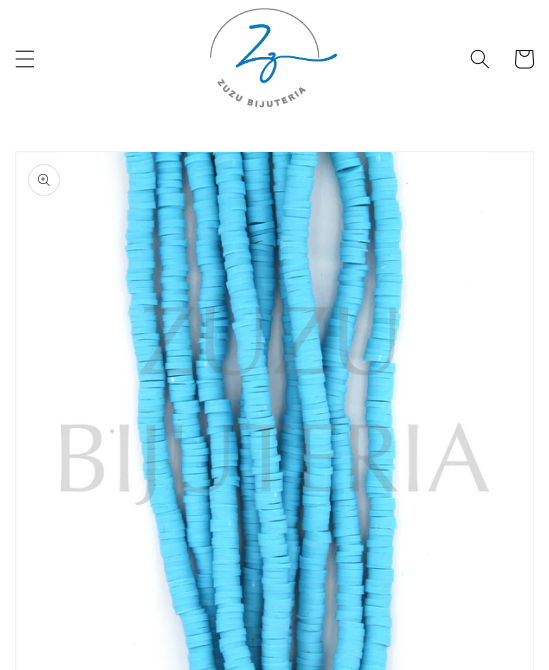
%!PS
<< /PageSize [549 670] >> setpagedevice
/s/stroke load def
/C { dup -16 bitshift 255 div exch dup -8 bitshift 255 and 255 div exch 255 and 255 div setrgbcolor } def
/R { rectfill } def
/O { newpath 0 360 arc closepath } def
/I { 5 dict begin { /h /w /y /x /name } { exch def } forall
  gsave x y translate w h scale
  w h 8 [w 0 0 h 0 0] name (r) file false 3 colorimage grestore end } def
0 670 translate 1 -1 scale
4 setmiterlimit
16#FFFFFF C
0 0 549 670 R
(1.rgb) 15 50 20 18 I
(2.rgb) 210 8 128 100 I
(3.rgb) 470 49 19 20 I
(4.rgb) 515 50 20 19 I
16#F3F3F3 C
15.5 151.5 518 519 rectstroke
(5.rgb) 60 152 429 518 I
16#E7E7E7 C
44 180 15.5 O s
(6.rgb) 38 174 12 12 I
showpage
